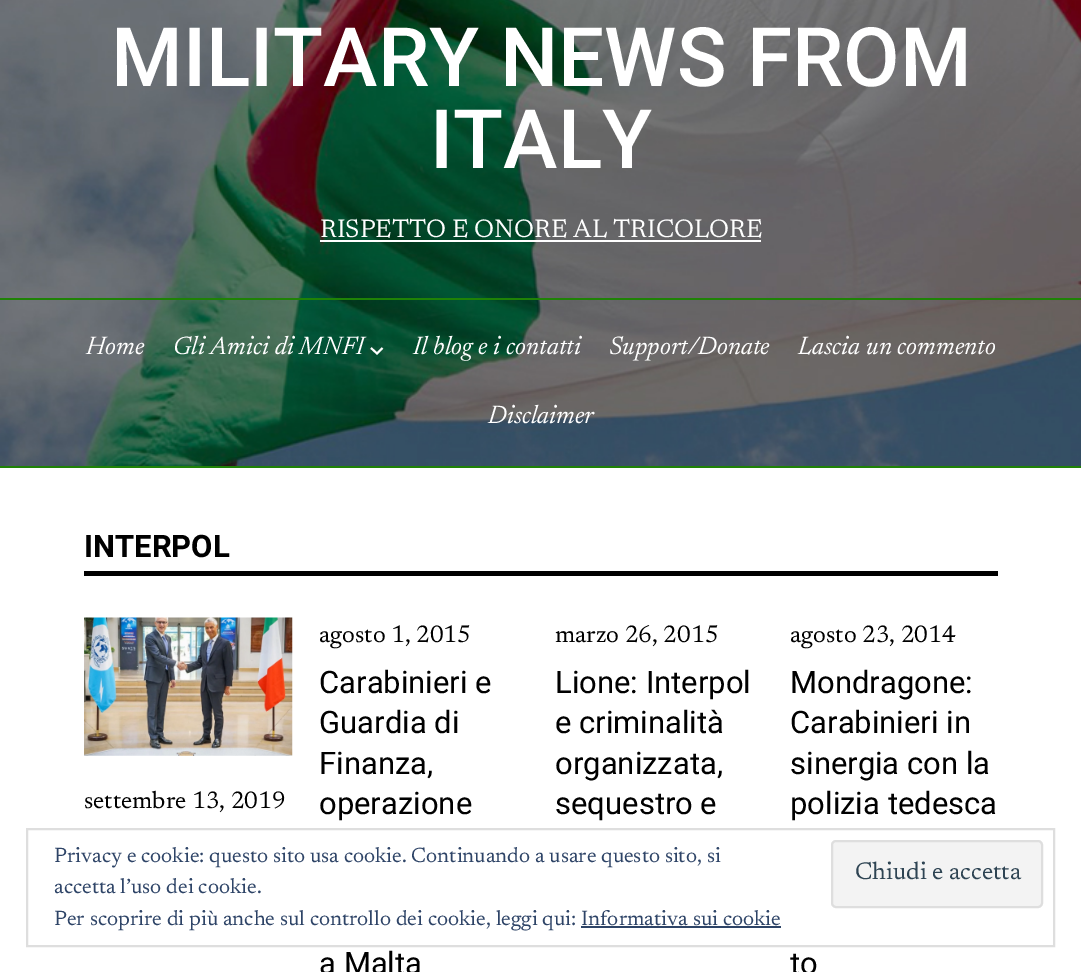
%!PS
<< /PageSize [1081 972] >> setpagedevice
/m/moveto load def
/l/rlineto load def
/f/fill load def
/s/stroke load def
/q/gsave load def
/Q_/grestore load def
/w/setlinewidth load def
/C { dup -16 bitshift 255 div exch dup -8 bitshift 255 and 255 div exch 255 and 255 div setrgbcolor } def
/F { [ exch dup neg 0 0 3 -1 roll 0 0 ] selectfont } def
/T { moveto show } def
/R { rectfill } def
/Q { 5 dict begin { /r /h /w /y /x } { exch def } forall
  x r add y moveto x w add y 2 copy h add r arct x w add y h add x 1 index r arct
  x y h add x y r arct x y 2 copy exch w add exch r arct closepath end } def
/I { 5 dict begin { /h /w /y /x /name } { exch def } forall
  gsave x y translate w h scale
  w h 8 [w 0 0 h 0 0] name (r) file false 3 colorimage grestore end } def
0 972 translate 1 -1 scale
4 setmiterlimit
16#FFFFFF C
0 0 1081 972 R
(1.rgb) 0 0 1081 466 I
/Roboto-Medium 82 F
(MILITARY NEWS FROM) 111 86 T
(ITALY) 430 168 T
/Newsreader-Regular 25.75 F
(RISPETTO E ONORE AL TRICOLORE) 320 237 T
320 240 441 2 R
16#1F8206 C
0 298 1081 2 R
0 466 1081 2 R
/Newsreader-Italic 25.75 F
16#FFFFFF C
(Home) 86 354 T
(Gli Amici di MNFI) 173 354 T
1.9 w
371 348 m 6 5.5 l 5.5 -5.5 l s
(Il blog e i contatti) 413 354 T
(Support/Donate) 609 354 T
(Lascia un commento) 798 354 T
(Disclaimer) 488 423 T
16#000000 C
84 571 914 5 R
/Roboto-Bold 31 F
(INTERPOL) 84 557 T
(2.rgb) 84 617 209 139 I
/Newsreader-Regular 24.25 F
(settembre 13, 2019) 84 808 T
(agosto 1, 2015) 319 642 T
/Roboto-Regular 31 F
(Carabinieri e) 319 693 T
(Guardia di) 319 733 T
(Finanza,) 319 774 T
(operazione) 319 814 T
(a Malta) 319 974 T
/Newsreader-Regular 24.25 F
(marzo 26, 2015) 555 642 T
/Roboto-Regular 31 F
(Lione: Interpol) 555 693 T
(e criminalità) 555 733 T
(organizzata,) 555 774 T
(sequestro e) 555 814 T
/Newsreader-Regular 24.25 F
(agosto 23, 2014) 790 642 T
/Roboto-Regular 31 F
(Mondragone:) 790 693 T
(Carabinieri in) 790 733 T
(sinergia con la) 790 774 T
(polizia tedesca) 790 814 T
(to) 790 974 T
16#DEDEDE C
2 w
27 829 1027 117 rectstroke
/Newsreader-Regular 21 F
16#2E4467 C
(Privacy e cookie: questo sito usa cookie. Continuando a usare questo sito, si) 54 862 T
16#F3F3F3 C
832 841 210 66 4 Q q f Q_
16#DEDEDE C
s
/Newsreader-Regular 24.5 F
16#2E4453 C
(Chiudi e accetta) 855 879 T
/Newsreader-Regular 21 F
16#2E4467 C
(accetta l’uso dei cookie.) 54 893 T
(Per scoprire di più anche sul controllo dei cookie, leggi qui: Informativa sui cookie) 54 925 T
581 926 200 2 R
showpage
